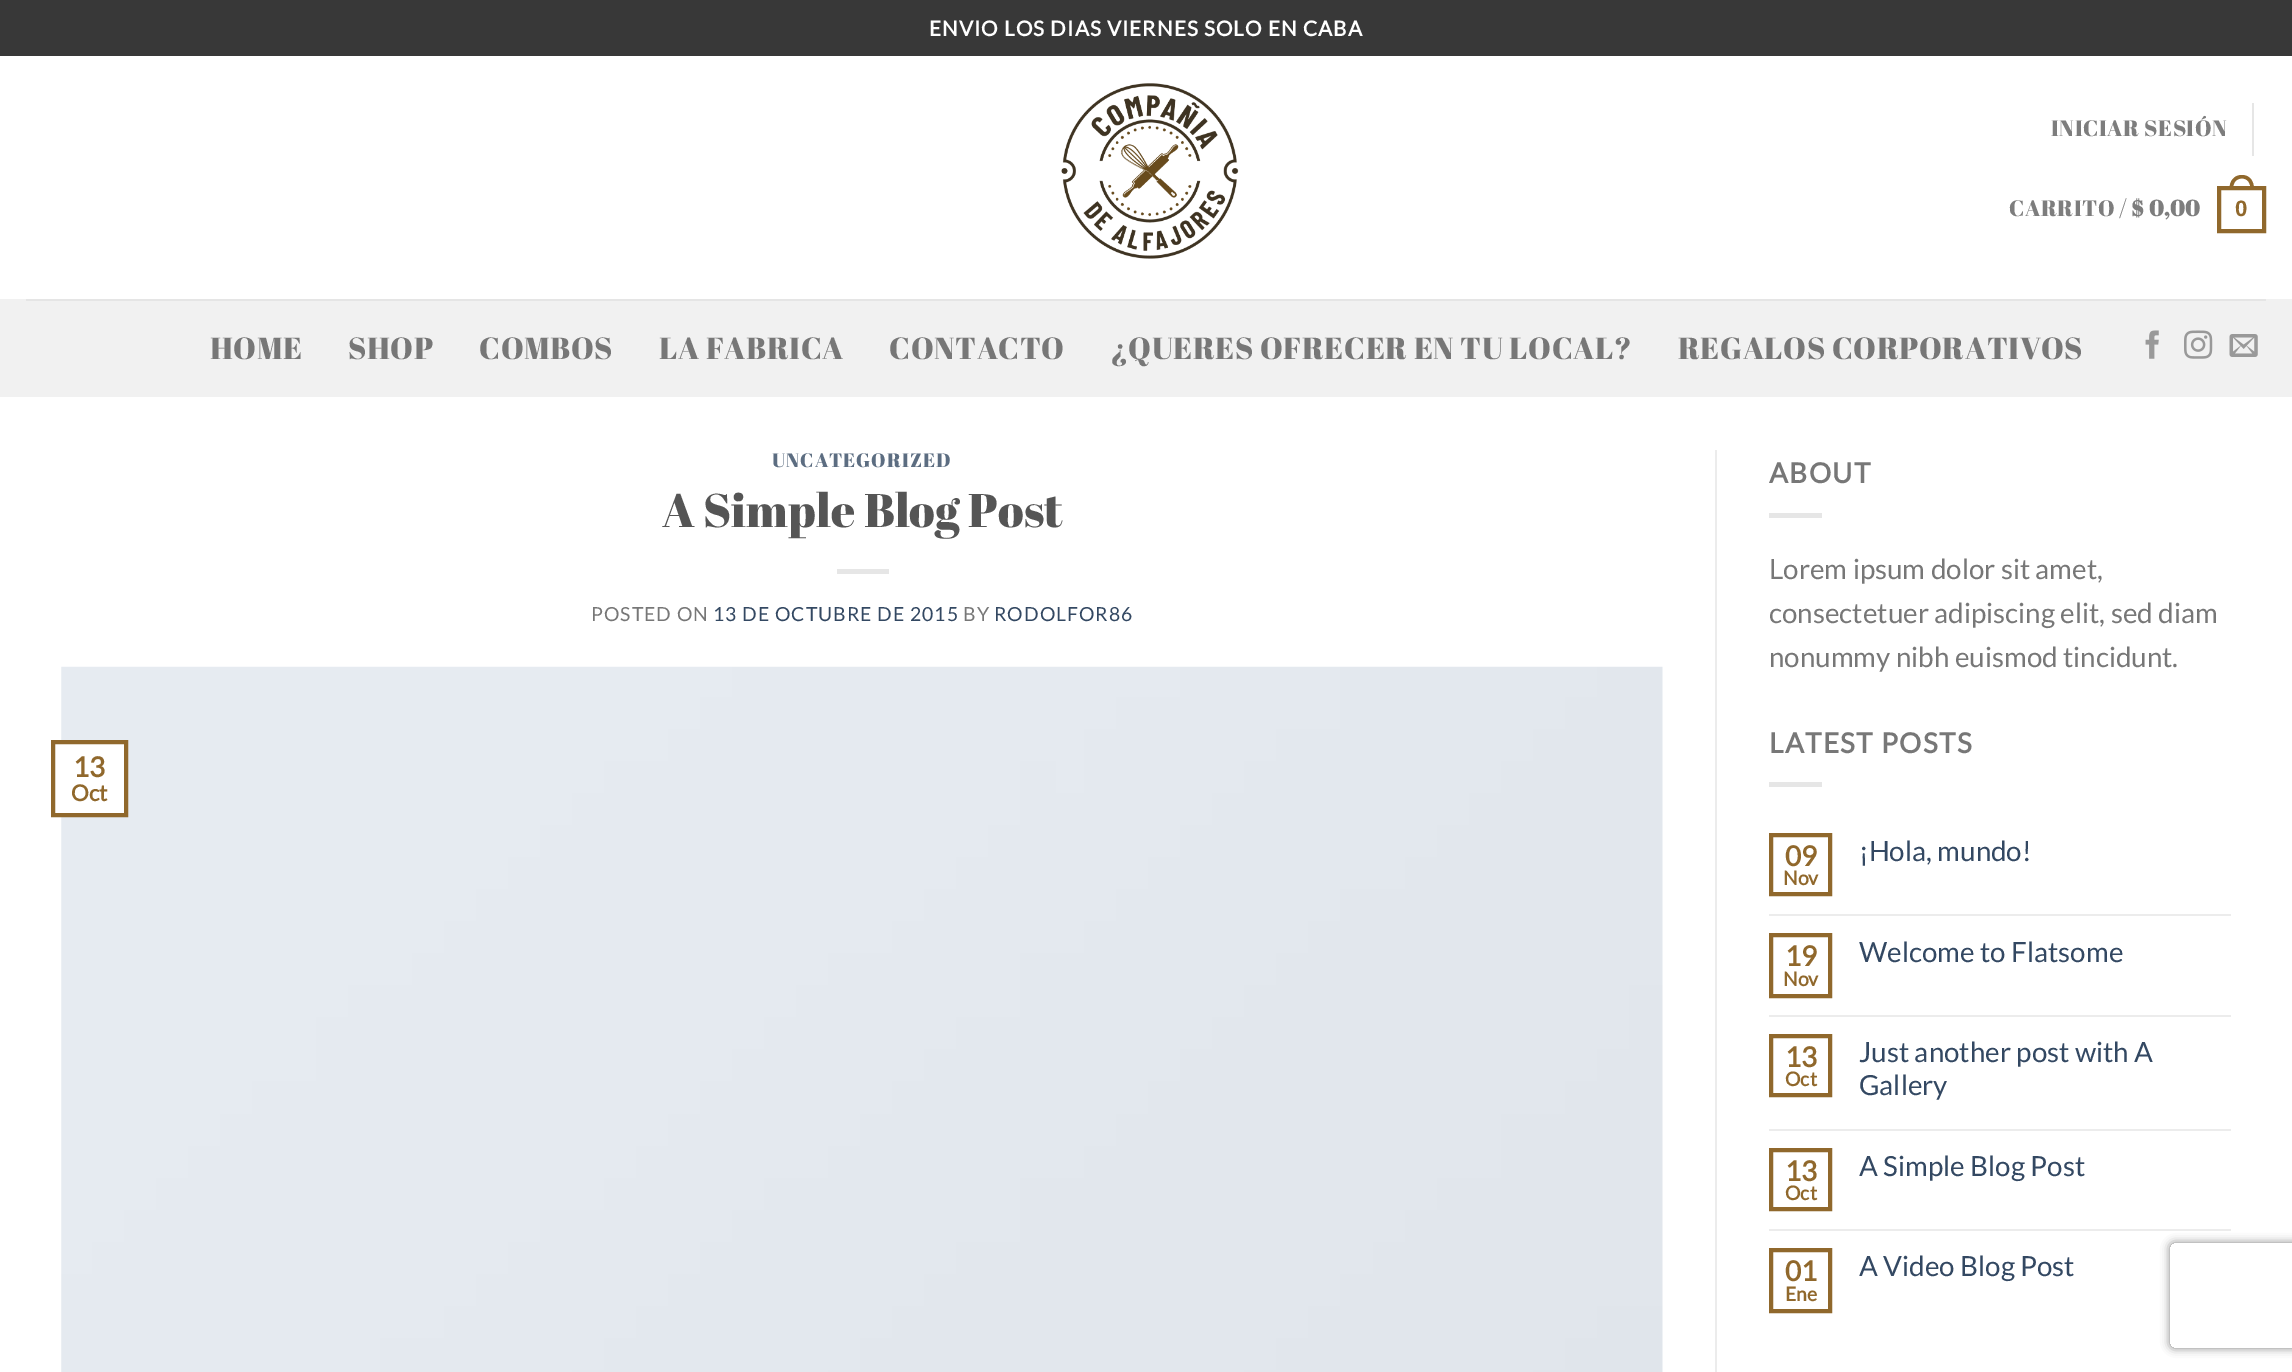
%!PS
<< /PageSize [2292 1372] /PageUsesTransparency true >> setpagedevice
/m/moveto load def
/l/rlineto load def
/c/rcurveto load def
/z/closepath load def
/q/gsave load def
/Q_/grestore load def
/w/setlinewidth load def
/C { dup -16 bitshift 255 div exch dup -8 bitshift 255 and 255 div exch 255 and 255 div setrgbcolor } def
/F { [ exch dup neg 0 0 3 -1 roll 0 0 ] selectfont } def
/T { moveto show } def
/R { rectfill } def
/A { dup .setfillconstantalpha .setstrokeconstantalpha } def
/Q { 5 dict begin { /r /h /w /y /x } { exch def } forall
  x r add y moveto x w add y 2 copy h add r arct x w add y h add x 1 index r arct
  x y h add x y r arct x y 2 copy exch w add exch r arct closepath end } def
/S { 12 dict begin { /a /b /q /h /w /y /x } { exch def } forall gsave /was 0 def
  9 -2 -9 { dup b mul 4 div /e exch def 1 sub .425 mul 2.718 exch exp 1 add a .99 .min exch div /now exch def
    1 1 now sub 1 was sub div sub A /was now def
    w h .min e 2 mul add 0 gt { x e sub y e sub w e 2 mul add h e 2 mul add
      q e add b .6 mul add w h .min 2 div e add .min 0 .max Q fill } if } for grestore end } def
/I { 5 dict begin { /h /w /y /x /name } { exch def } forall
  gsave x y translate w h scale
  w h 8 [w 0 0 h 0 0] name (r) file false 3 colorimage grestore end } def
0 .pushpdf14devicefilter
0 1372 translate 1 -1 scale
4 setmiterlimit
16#FFFFFF C
0 0 2292 1372 R
16#383838 C
0 0 2292 56 R
/Lato-Bold 20.75 F
16#FFFFFF C
929 36 m 1.05 0 (ENVIO LOS DIAS VIERNES SOLO EN CABA) ashow
(1.rgb) 1061 83 178 176 I
/AbrilFatface-Regular 22.25 F
16#7D7D7D C
2051 136 m .5 0 (INICIAR SESIÓN) ashow
16#E6E6E6 C
2252 103 2 53 R
16#7D7D7D C
2009 216 m .5 0 (CARRITO /) ashow
/AbrilFatface-Bold 22.25 F
2131 216 m .5 0 ($ 0,00) ashow
16#90682C C
4 w
2219 188 45 43 rectstroke
2242 175 m 8 0 12 6.5 12 14 c -24.5 0 l 0 -7.5 4 -14 12.5 -14 c z 2242 178.5 m 6 0 8.5 5 8.5 10.5 c -17.5 0 l 0 -5.5 2.5 -10.5 9 -10.5 c z eofill
/LiberationSans-Bold 22.25 F
2235 216 m .5 0 (0) ashow
16#F1F1F1 C
0 299 2292 98 R
16#E5E5E5 C
26 299 2240 2 R
/AbrilFatface-Regular 30.5 F
16#777777 C
210 359 m .6 0 (HOME) ashow
348 359 m .6 0 (SHOP) ashow
479 359 m .6 0 (COMBOS) ashow
659 359 m .6 0 (LA FABRICA) ashow
889 359 m .6 0 (CONTACTO) ashow
1110 359 m .6 0 (¿QUERES OFRECER EN TU LOCAL?) ashow
1678 359 m .6 0 (REGALOS CORPORATIVOS) ashow
(2.rgb) 2145 330 14 29 I
(3.rgb) 2184 330 29 29 I
(4.rgb) 2229 334 29 23 I
/AbrilFatface-Regular 19.4 F
16#5C6D81 C
772 467 m 1 0 (UNCATEGORIZED) ashow
/AbrilFatface-Regular 47.1 F
16#555555 C
(A Simple Blog Post) 662 527 T
16#E6E6E6 C
837 569 52 5 R
/Lato-Regular 19.4 F
16#777777 C
591 621 m 1 0 (POSTED ON) ashow
16#334862 C
713 621 m 1 0 (13 DE OCTUBRE DE 2015) ashow
16#777777 C
963 621 m 1 0 (BY) ashow
16#334862 C
994 621 m 1 0 (RODOLFOR86) ashow
(5.rgb) 61 666 1602 706 I
16#FFFFFF C
61 744 63 69 R
16#90682C C
53 742 73 73 rectstroke
/Lato-Bold 27.75 F
(13) 73 777 T
/Lato-Bold 22.25 F
(Oct) 71 801 T
16#ECECEC C
1715 450 2 922 R
/Lato-Bold 27.75 F
16#777777 C
1769 483 m 1.4 0 (ABOUT) ashow
16#E6E6E6 C
1769 513 53 5 R
/Lato-Regular 27.75 F
16#777777 C
(Lorem ipsum dolor sit amet,) 1769 579 T
(consectetuer adipiscing elit, sed diam) 1769 623 T
(nonummy nibh euismod tincidunt.) 1769 667 T
/Lato-Bold 27.75 F
1769 753 m 1.4 0 (LATEST POSTS) ashow
16#E6E6E6 C
1769 782 53 5 R
16#90682C C
1771 835 59 59 rectstroke
(09) 1785 866 T
/Lato-Bold 19.4 F
(Nov) 1783 885 T
/Lato-Regular 27.75 F
16#334862 C
(¡Hola, mundo!) 1859 861 T
16#ECECEC C
1769 914 462 2 R
16#90682C C
1771 935 59 61 rectstroke
/Lato-Bold 27.75 F
(19) 1785 966 T
/Lato-Bold 19.4 F
(Nov) 1783 986 T
/Lato-Regular 27.75 F
16#334862 C
(Welcome to Flatsome) 1859 962 T
16#ECECEC C
1769 1015 462 2 R
16#90682C C
1771 1036 59 59 rectstroke
/Lato-Bold 27.75 F
(13) 1785 1067 T
/Lato-Bold 19.4 F
(Oct) 1785 1086 T
/Lato-Regular 27.75 F
16#334862 C
(Just another post with A) 1859 1062 T
(Gallery) 1859 1095 T
16#ECECEC C
1769 1129 462 2 R
16#90682C C
1771 1150 59 59 rectstroke
/Lato-Bold 27.75 F
(13) 1785 1181 T
/Lato-Bold 19.4 F
(Oct) 1785 1200 T
/Lato-Regular 27.75 F
16#334862 C
(A Simple Blog Post) 1859 1176 T
16#ECECEC C
1769 1229 462 2 R
16#90682C C
1771 1250 59 61 rectstroke
/Lato-Bold 27.75 F
(01) 1785 1281 T
/Lato-Bold 19.4 F
(Ene) 1785 1301 T
/Lato-Regular 27.75 F
16#334862 C
(A Video Blog Post) 1859 1276 T
q
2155 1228 m 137 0 l 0 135 l -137 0 l z 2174 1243 m 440 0 l 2 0 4 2 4 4 c 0 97 l 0 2 -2 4 -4 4 c -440 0 l -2 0 -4 -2 -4 -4 c 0 -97 l 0 -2 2 -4 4 -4 c z eoclip newpath
16#808080 C
2170 1243 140 105 4 4.5 1 S
Q_
.poppdf14devicefilter showpage
